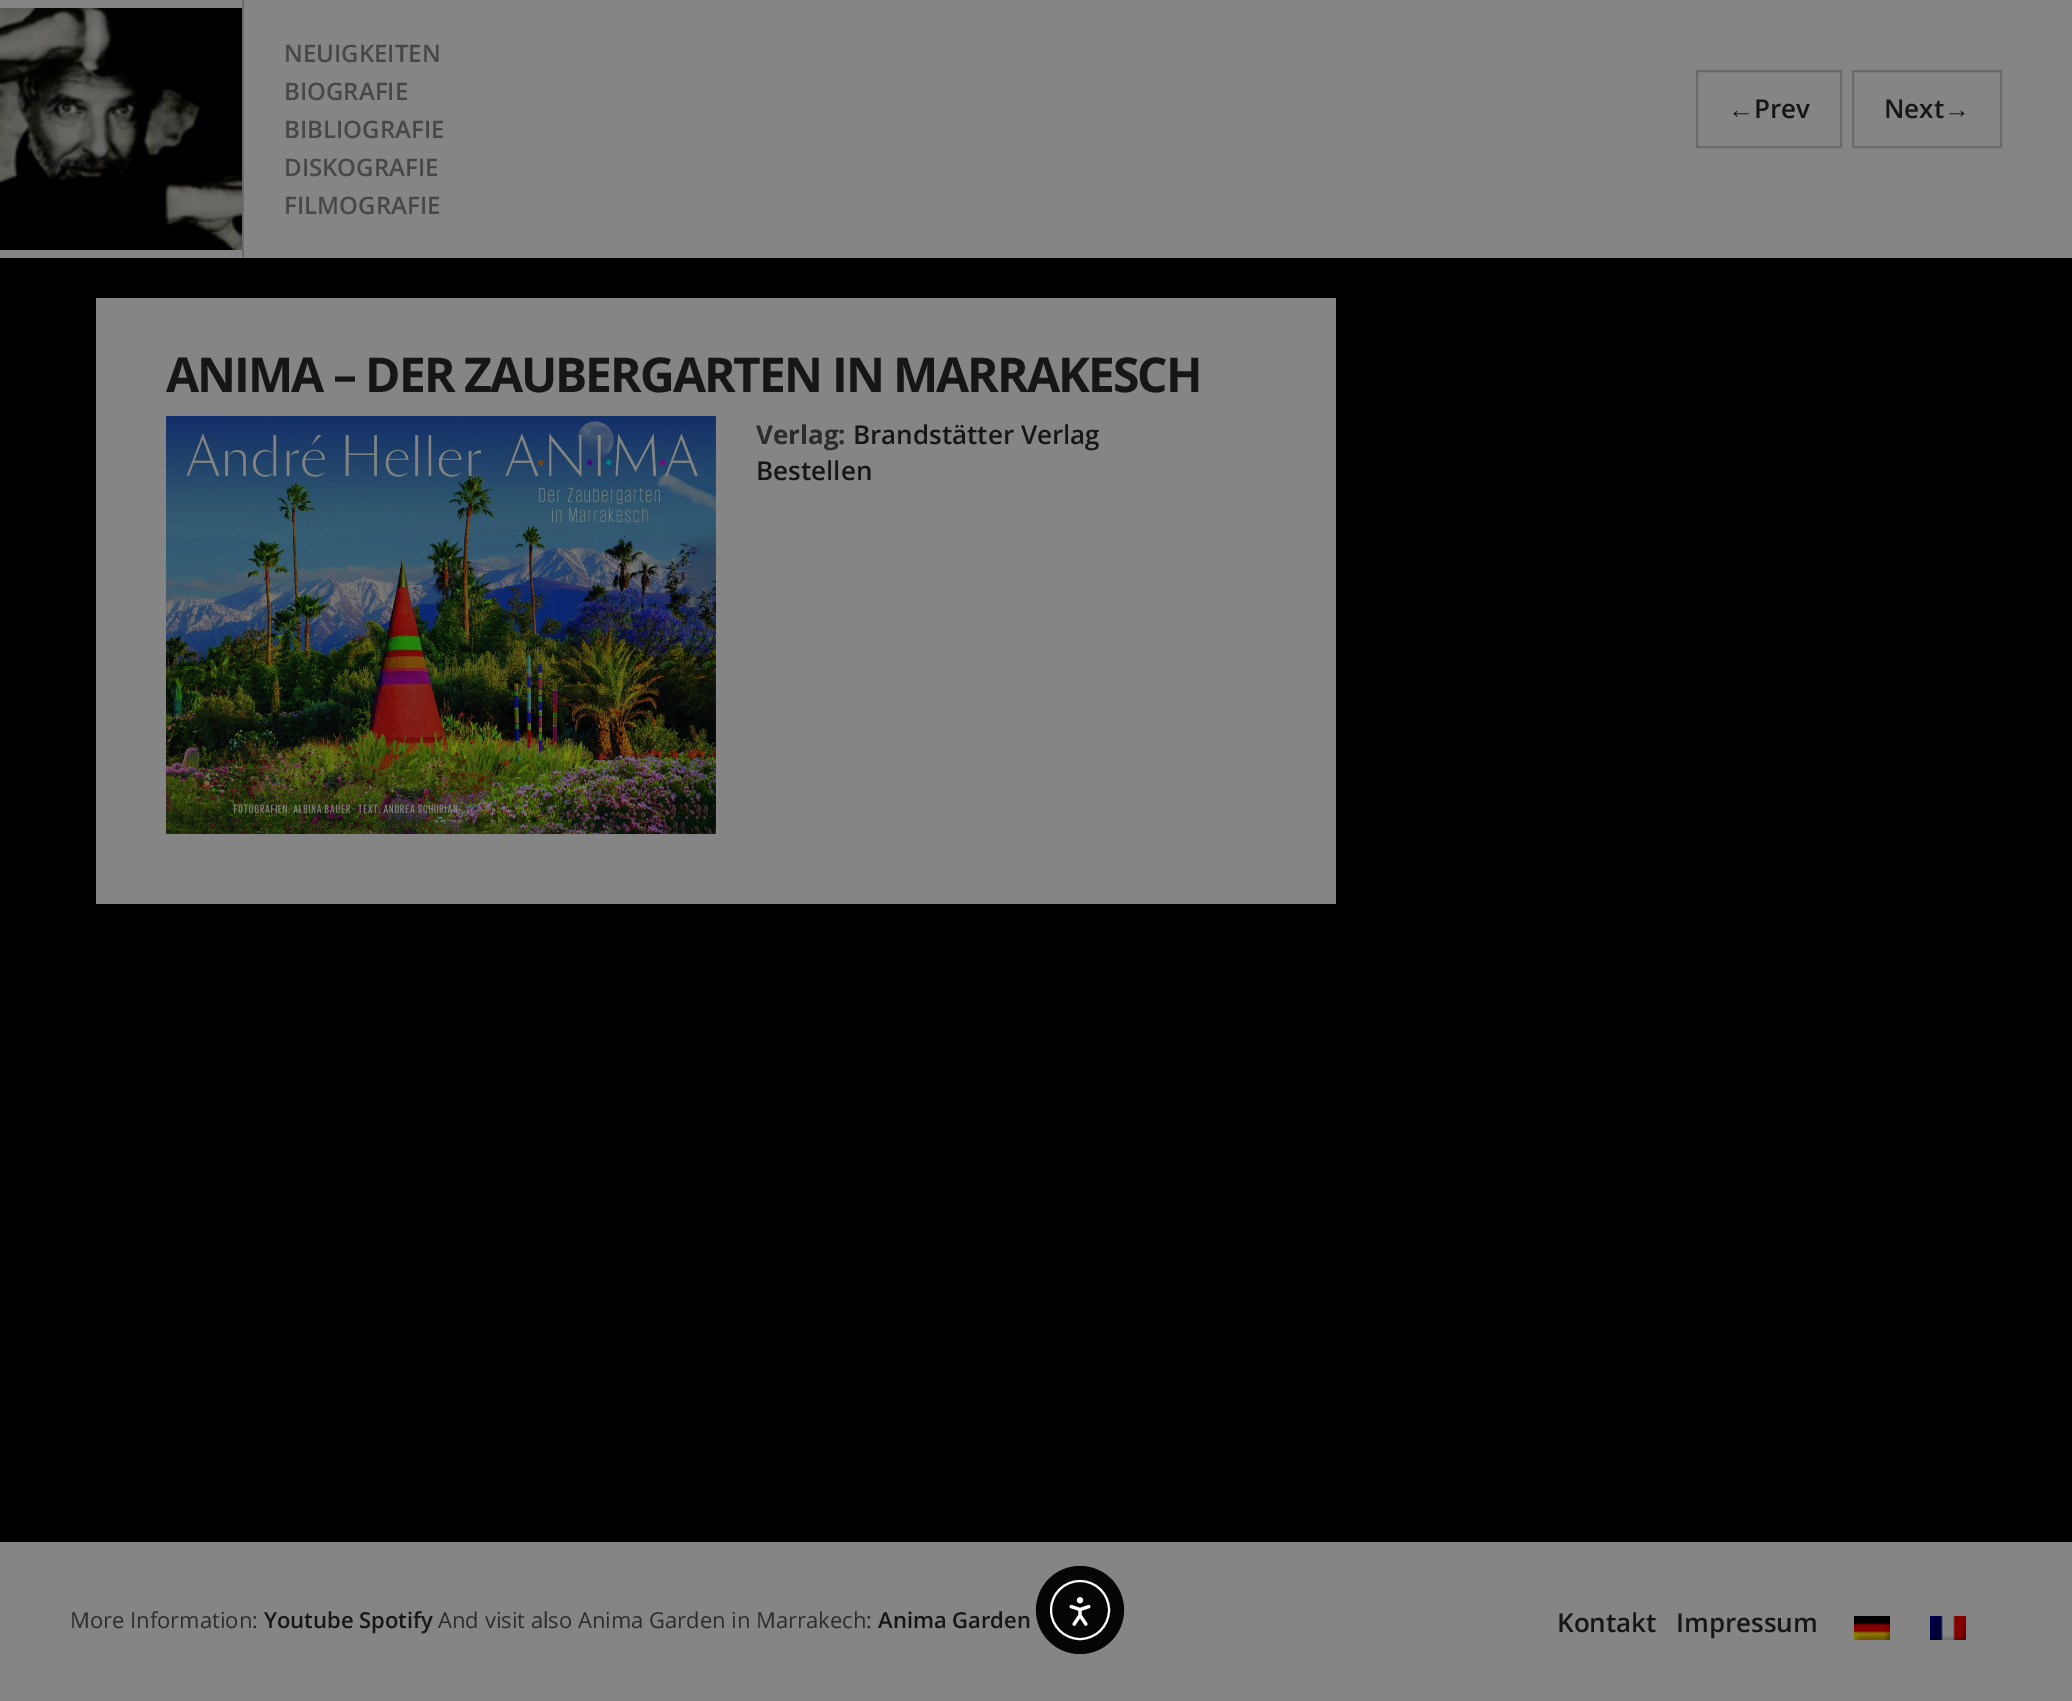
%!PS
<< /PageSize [2072 1701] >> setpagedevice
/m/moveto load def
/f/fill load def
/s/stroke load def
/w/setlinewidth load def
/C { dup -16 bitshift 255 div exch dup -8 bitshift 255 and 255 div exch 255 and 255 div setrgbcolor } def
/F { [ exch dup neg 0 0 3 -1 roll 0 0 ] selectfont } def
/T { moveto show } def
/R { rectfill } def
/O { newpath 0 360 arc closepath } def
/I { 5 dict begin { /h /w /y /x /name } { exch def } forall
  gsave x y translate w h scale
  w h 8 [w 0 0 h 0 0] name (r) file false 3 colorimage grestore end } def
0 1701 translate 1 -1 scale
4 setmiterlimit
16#000000 C
0 0 2072 1701 R
16#858585 C
0 0 2072 258 R
(1.rgb) 0 8 242 242 I
16#6A6A6A C
242 0 2 258 R
/OpenSans-SemiBold 24 F
16#474747 C
(NEUIGKEITEN) 284 62 T
(BIOGRAFIE) 284 100 T
(BIBLIOGRAFIE) 284 138 T
(DISKOGRAFIE) 284 176 T
(FILMOGRAFIE) 284 214 T
16#6A6A6A C
2 w
1697 71 144 76 rectstroke
/LiberationSans-Regular 26 F
16#161616 C
(←) 1728 118 T
/OpenSans-SemiBold 26 F
(Prev) 1754 118 T
16#6A6A6A C
1853 71 148 76 rectstroke
16#161616 C
(Next) 1884 118 T
/LiberationSans-Regular 26 F
(→) 1944 118 T
16#858585 C
96 298 1240 606 R
/OpenSans-Bold 48 F
16#161616 C
166 392 m -2 0 (ANIMA – DER ZAUBERGARTEN IN MARRAKESCH) ashow
(2.rgb) 166 416 550 418 I
/OpenSans-Bold 26 F
16#2C2C2C C
(Verlag:) 756 444 T
/OpenSans-SemiBold 26 F
16#161616 C
(Brandstätter Verlag) 853 444 T
(Bestellen) 756 480 T
16#858585 C
0 1542 2072 159 R
16#050505 C
1080 1610 44 O f
16#FFFFFF C
1080 1610 29 O s
(3.rgb) 1069 1597 22 29 I
/OpenSans-Regular 22 F
16#2C2C2C C
(More Information:) 70 1628 T
/OpenSans-SemiBold 22 F
16#161616 C
(Youtube Spotify) 264 1628 T
/OpenSans-Regular 22 F
16#2C2C2C C
(And visit also Anima Garden in Marrakech:) 438 1628 T
/OpenSans-SemiBold 22 F
16#161616 C
(Anima Garden) 878 1628 T
/OpenSans-SemiBold 26 F
(Kontakt) 1557 1632 T
(Impressum) 1676 1632 T
(4.rgb) 1854 1616 36 24 I
(5.rgb) 1930 1616 36 24 I
showpage
